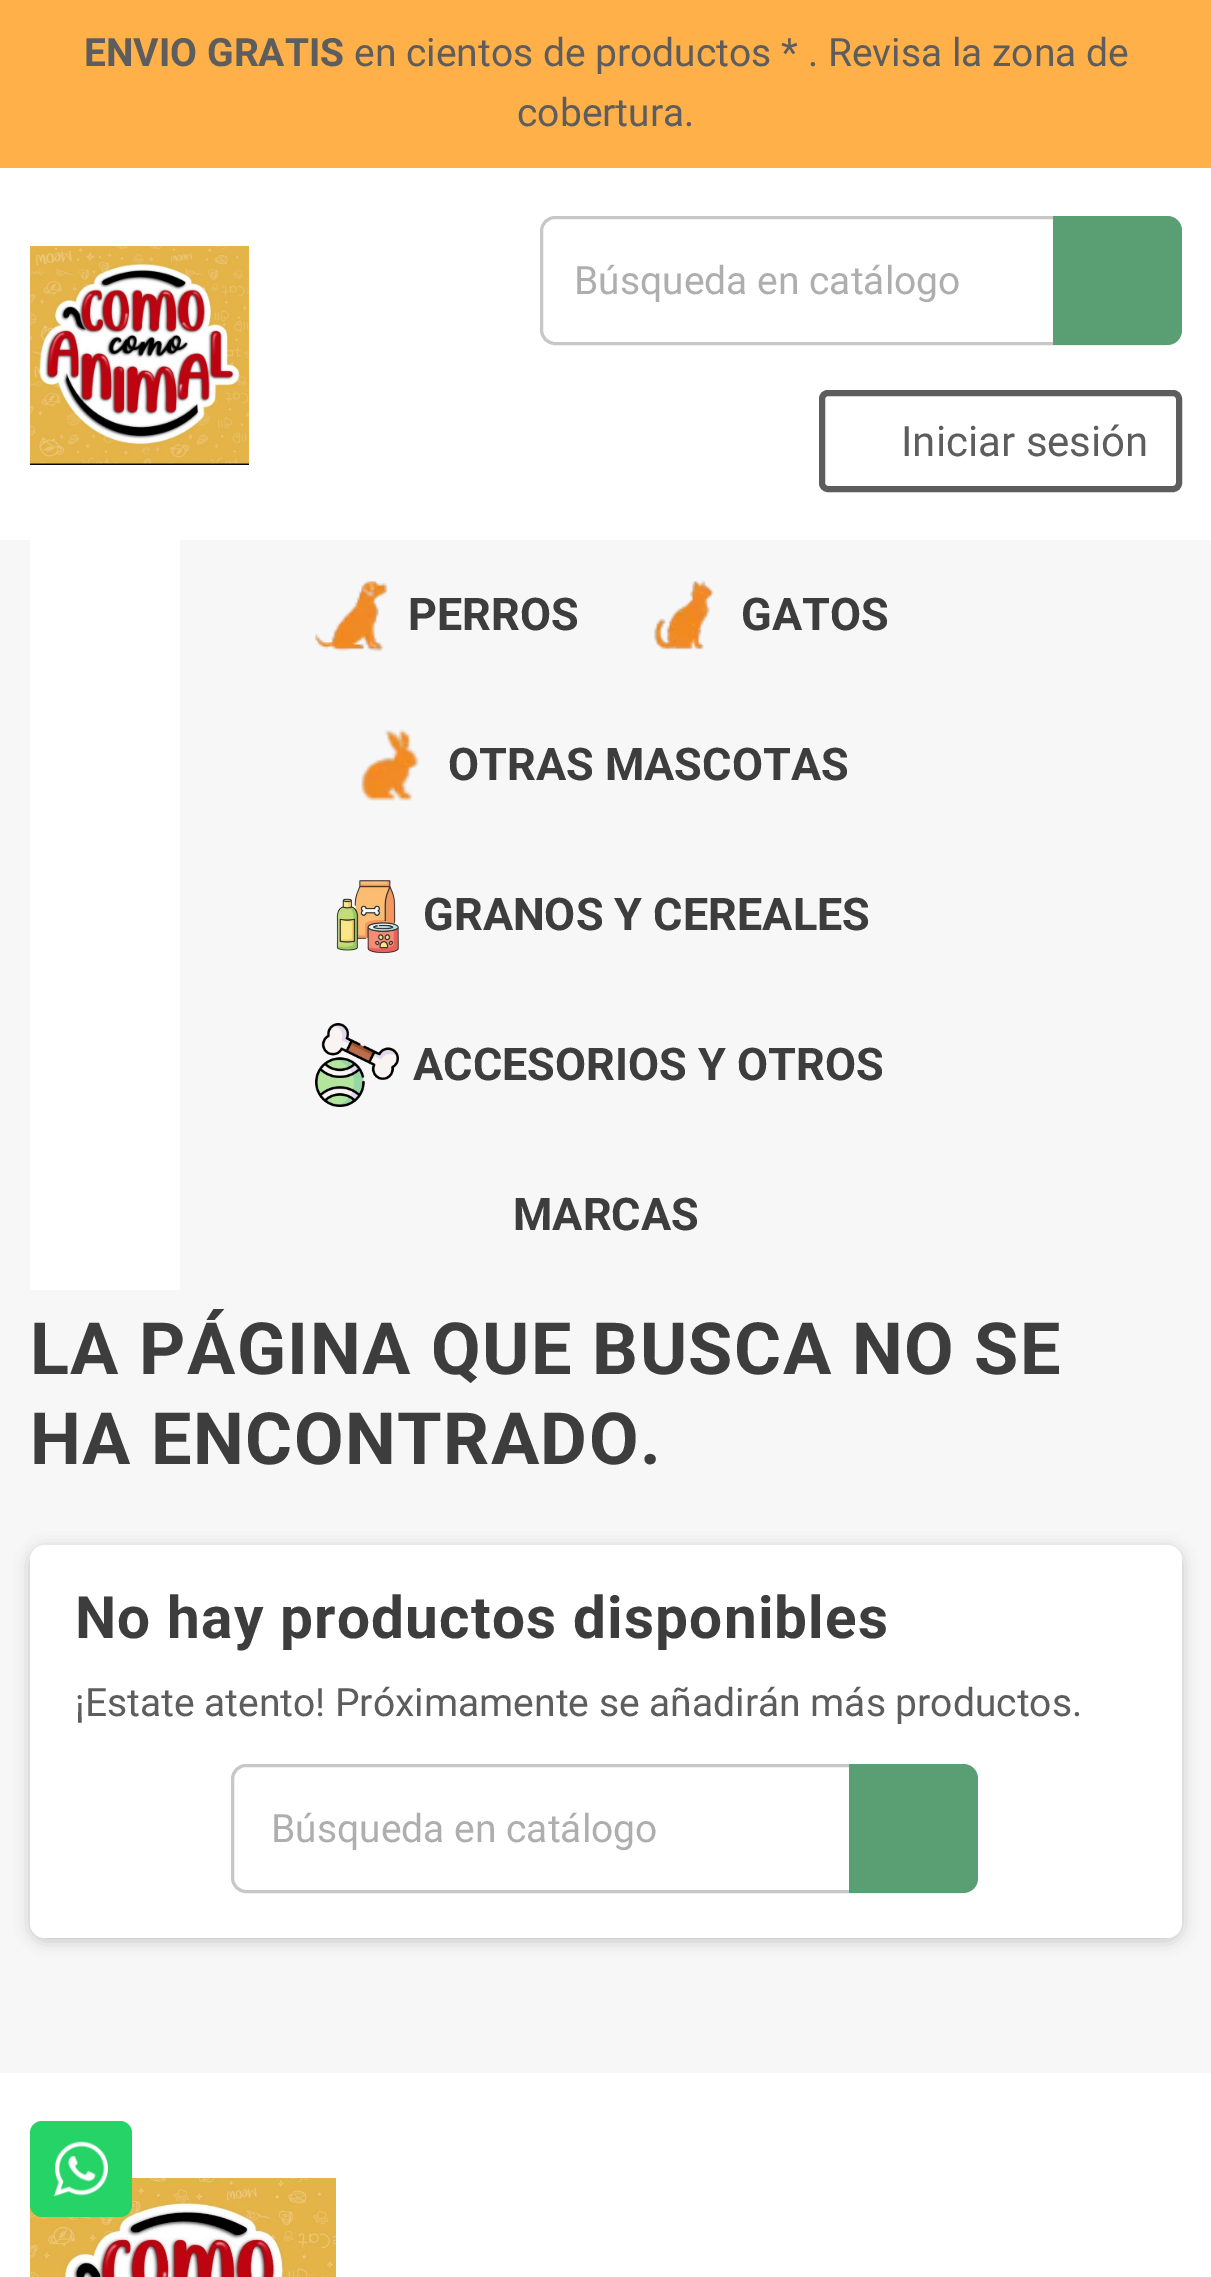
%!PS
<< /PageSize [1211 2277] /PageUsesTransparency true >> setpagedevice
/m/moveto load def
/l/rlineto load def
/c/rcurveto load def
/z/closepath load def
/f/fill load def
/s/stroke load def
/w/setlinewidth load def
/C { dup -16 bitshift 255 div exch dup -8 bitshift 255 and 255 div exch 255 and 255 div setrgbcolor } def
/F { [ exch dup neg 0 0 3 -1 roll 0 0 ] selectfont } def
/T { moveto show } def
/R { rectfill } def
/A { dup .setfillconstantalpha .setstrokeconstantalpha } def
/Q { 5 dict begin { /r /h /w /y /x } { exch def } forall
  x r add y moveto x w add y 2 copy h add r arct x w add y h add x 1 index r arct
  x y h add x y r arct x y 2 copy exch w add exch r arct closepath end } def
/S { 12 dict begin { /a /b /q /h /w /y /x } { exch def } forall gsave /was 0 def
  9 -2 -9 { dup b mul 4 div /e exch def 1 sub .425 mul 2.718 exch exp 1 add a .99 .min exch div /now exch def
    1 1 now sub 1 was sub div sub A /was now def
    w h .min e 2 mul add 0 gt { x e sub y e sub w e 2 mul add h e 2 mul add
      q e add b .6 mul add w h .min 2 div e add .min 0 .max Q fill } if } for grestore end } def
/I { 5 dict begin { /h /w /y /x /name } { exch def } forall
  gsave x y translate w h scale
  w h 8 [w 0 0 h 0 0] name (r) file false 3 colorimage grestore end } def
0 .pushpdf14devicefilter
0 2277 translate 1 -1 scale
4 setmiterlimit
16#FFFFFF C
0 0 1211 2277 R
16#FFB048 C
0 0 1211 168 R
/Roboto-Bold 39 F
16#5D5D5D C
(ENVIO GRATIS) 84 66 T
/Roboto-Regular 39 F
(en cientos de productos * . Revisa la zona de) 354 66 T
(cobertura.) 517 126 T
(1.rgb) 30 246 219 219 I
16#C7C7C7 C
3 w
541.5 217.5 636 126 13.5 Q s
16#AEAEAE C
(Búsqueda en catálogo) 574 294 T
16#5A9E74 C
1053 216 m 114 0 l 8.5 0 15 6.5 15 15 c 0 99 l 0 8.5 -6.5 15 -15 15 c -114 0 l z f
16#5D5D5D C
6 w
822 393 357 96 6 Q s
/Roboto-Regular 42 F
(Iniciar sesión) 901 456 T
16#F7F7F7 C
0 540 1211 1533 R
16#FFFFFF C
30 540 150 750 R
(2.rgb) 314 580 74 72 I
/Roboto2-Bold 45 F
16#3D3D3D C
(PERROS) 408 630 T
(3.rgb) 654 580 60 70 I
(GATOS) 741 630 T
(4.rgb) 361 729 58 72 I
(OTRAS MASCOTAS) 448 780 T
(5.rgb) 336 880 63 74 I
(GRANOS Y CEREALES) 423 930 T
(6.rgb) 315 1023 84 84 I
(ACCESORIOS Y OTROS) 413 1080 T
(MARCAS) 513 1230 T
/Roboto2-Bold 72 F
30 1374 m 1.4 0 (LA PÁGINA QUE BUSCA NO SE) ashow
30 1464 m 1.4 0 (HA ENCONTRADO.) ashow
16#000000 C
30 1548 1152 393 15 7.5 .2 S
16#FFFFFF C
30 1545 1152 393 15 Q f
/Roboto2-Bold 58.5 F
16#3D3D3D C
75 1638 m 1.2 0 (No hay productos disponibles) ashow
/Roboto-Regular 39 F
16#5D5D5D C
(¡Estate atento! Próximamente se añadirán más productos.) 75 1716 T
16#C7C7C7 C
3 w
232.5 1765.5 741 126 13.5 Q s
16#AEAEAE C
(Búsqueda en catálogo) 271 1842 T
16#5A9E74 C
849 1764 m 114 0 l 8.5 0 15 6.5 15 15 c 0 99 l 0 8.5 -6.5 15 -15 15 c -114 0 l z f
(7.rgb) 30 2178 306 99 I
16#25D366 C
30 2121 102 96 12 Q f
(8.rgb) 54 2141 54 55 I
.poppdf14devicefilter showpage
